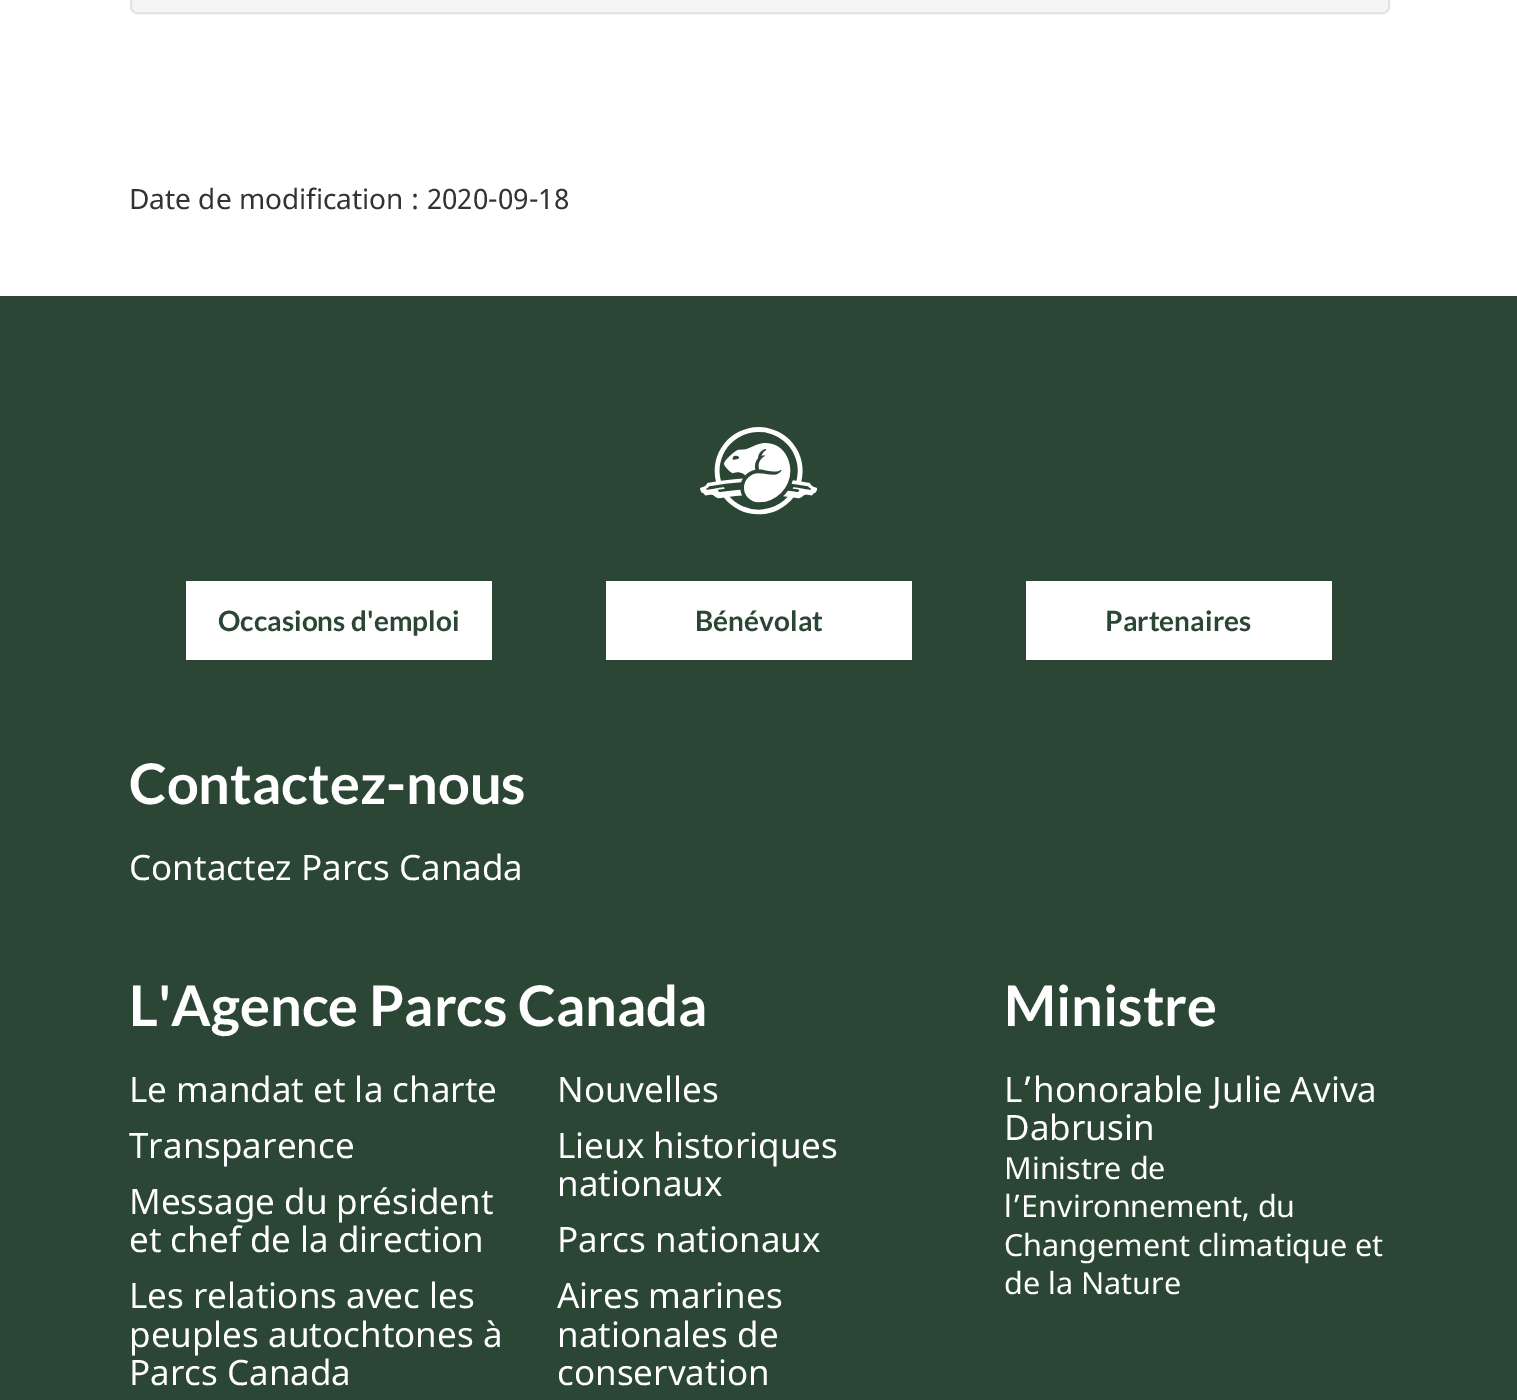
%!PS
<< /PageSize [1517 1400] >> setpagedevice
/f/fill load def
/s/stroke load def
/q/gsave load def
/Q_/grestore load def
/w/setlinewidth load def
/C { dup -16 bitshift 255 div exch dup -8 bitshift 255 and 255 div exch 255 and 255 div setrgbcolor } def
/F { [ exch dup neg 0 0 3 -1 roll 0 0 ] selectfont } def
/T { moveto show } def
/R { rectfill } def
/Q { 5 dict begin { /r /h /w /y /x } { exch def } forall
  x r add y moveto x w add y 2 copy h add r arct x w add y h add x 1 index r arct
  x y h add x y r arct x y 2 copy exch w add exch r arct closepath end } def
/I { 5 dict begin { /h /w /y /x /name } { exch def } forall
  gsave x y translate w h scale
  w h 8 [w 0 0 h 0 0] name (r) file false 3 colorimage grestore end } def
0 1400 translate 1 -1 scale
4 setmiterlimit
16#FFFFFF C
0 0 1517 1400 R
16#F5F5F5 C
131 -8 1258 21 6 Q q f Q_
16#E3E3E3 C
2 w
s
/NotoSans-Regular 28 F
16#333333 C
(Date de modification : 2020-09-18) 129 209 T
16#2B4635 C
0 296 1517 1104 R
(1.rgb) 700 427 117 88 I
16#FFFFFF C
186 581 306 79 R
/Lato-Bold 28 F
16#2B4635 C
(Occasions d'emploi) 218 631 T
16#FFFFFF C
606 581 306 79 R
16#2B4635 C
(Bénévolat) 695 631 T
16#FFFFFF C
1026 581 306 79 R
16#2B4635 C
(Partenaires) 1105 631 T
/Lato-Bold 56 F
16#FFFFFF C
(Contactez-nous) 129 804 T
/NotoSans-Regular 35 F
(Contactez Parcs Canada) 129 880 T
/Lato-Bold 56 F
(L'Agence Parcs Canada) 129 1026 T
/NotoSans-Regular 35 F
(Le mandat et la charte) 129 1102 T
(Nouvelles) 557 1102 T
(Transparence) 129 1158 T
(Lieux historiques) 557 1158 T
(nationaux) 557 1196 T
(Message du président) 129 1214 T
(et chef de la direction) 129 1252 T
(Parcs nationaux) 557 1252 T
(Les relations avec les) 129 1308 T
(peuples autochtones à) 129 1347 T
(Parcs Canada) 129 1385 T
(Aires marines) 557 1308 T
(nationales de) 557 1347 T
(conservation) 557 1385 T
/Lato-Bold 56 F
(Ministre) 1004 1026 T
/NotoSans-Regular 35 F
(L’honorable Julie Aviva) 1004 1102 T
(Dabrusin) 1004 1140 T
/NotoSans-Regular 30.5 F
(Ministre de) 1004 1179 T
(l’Environnement, du) 1004 1217 T
(Changement climatique et) 1004 1256 T
(de la Nature) 1004 1294 T
showpage
